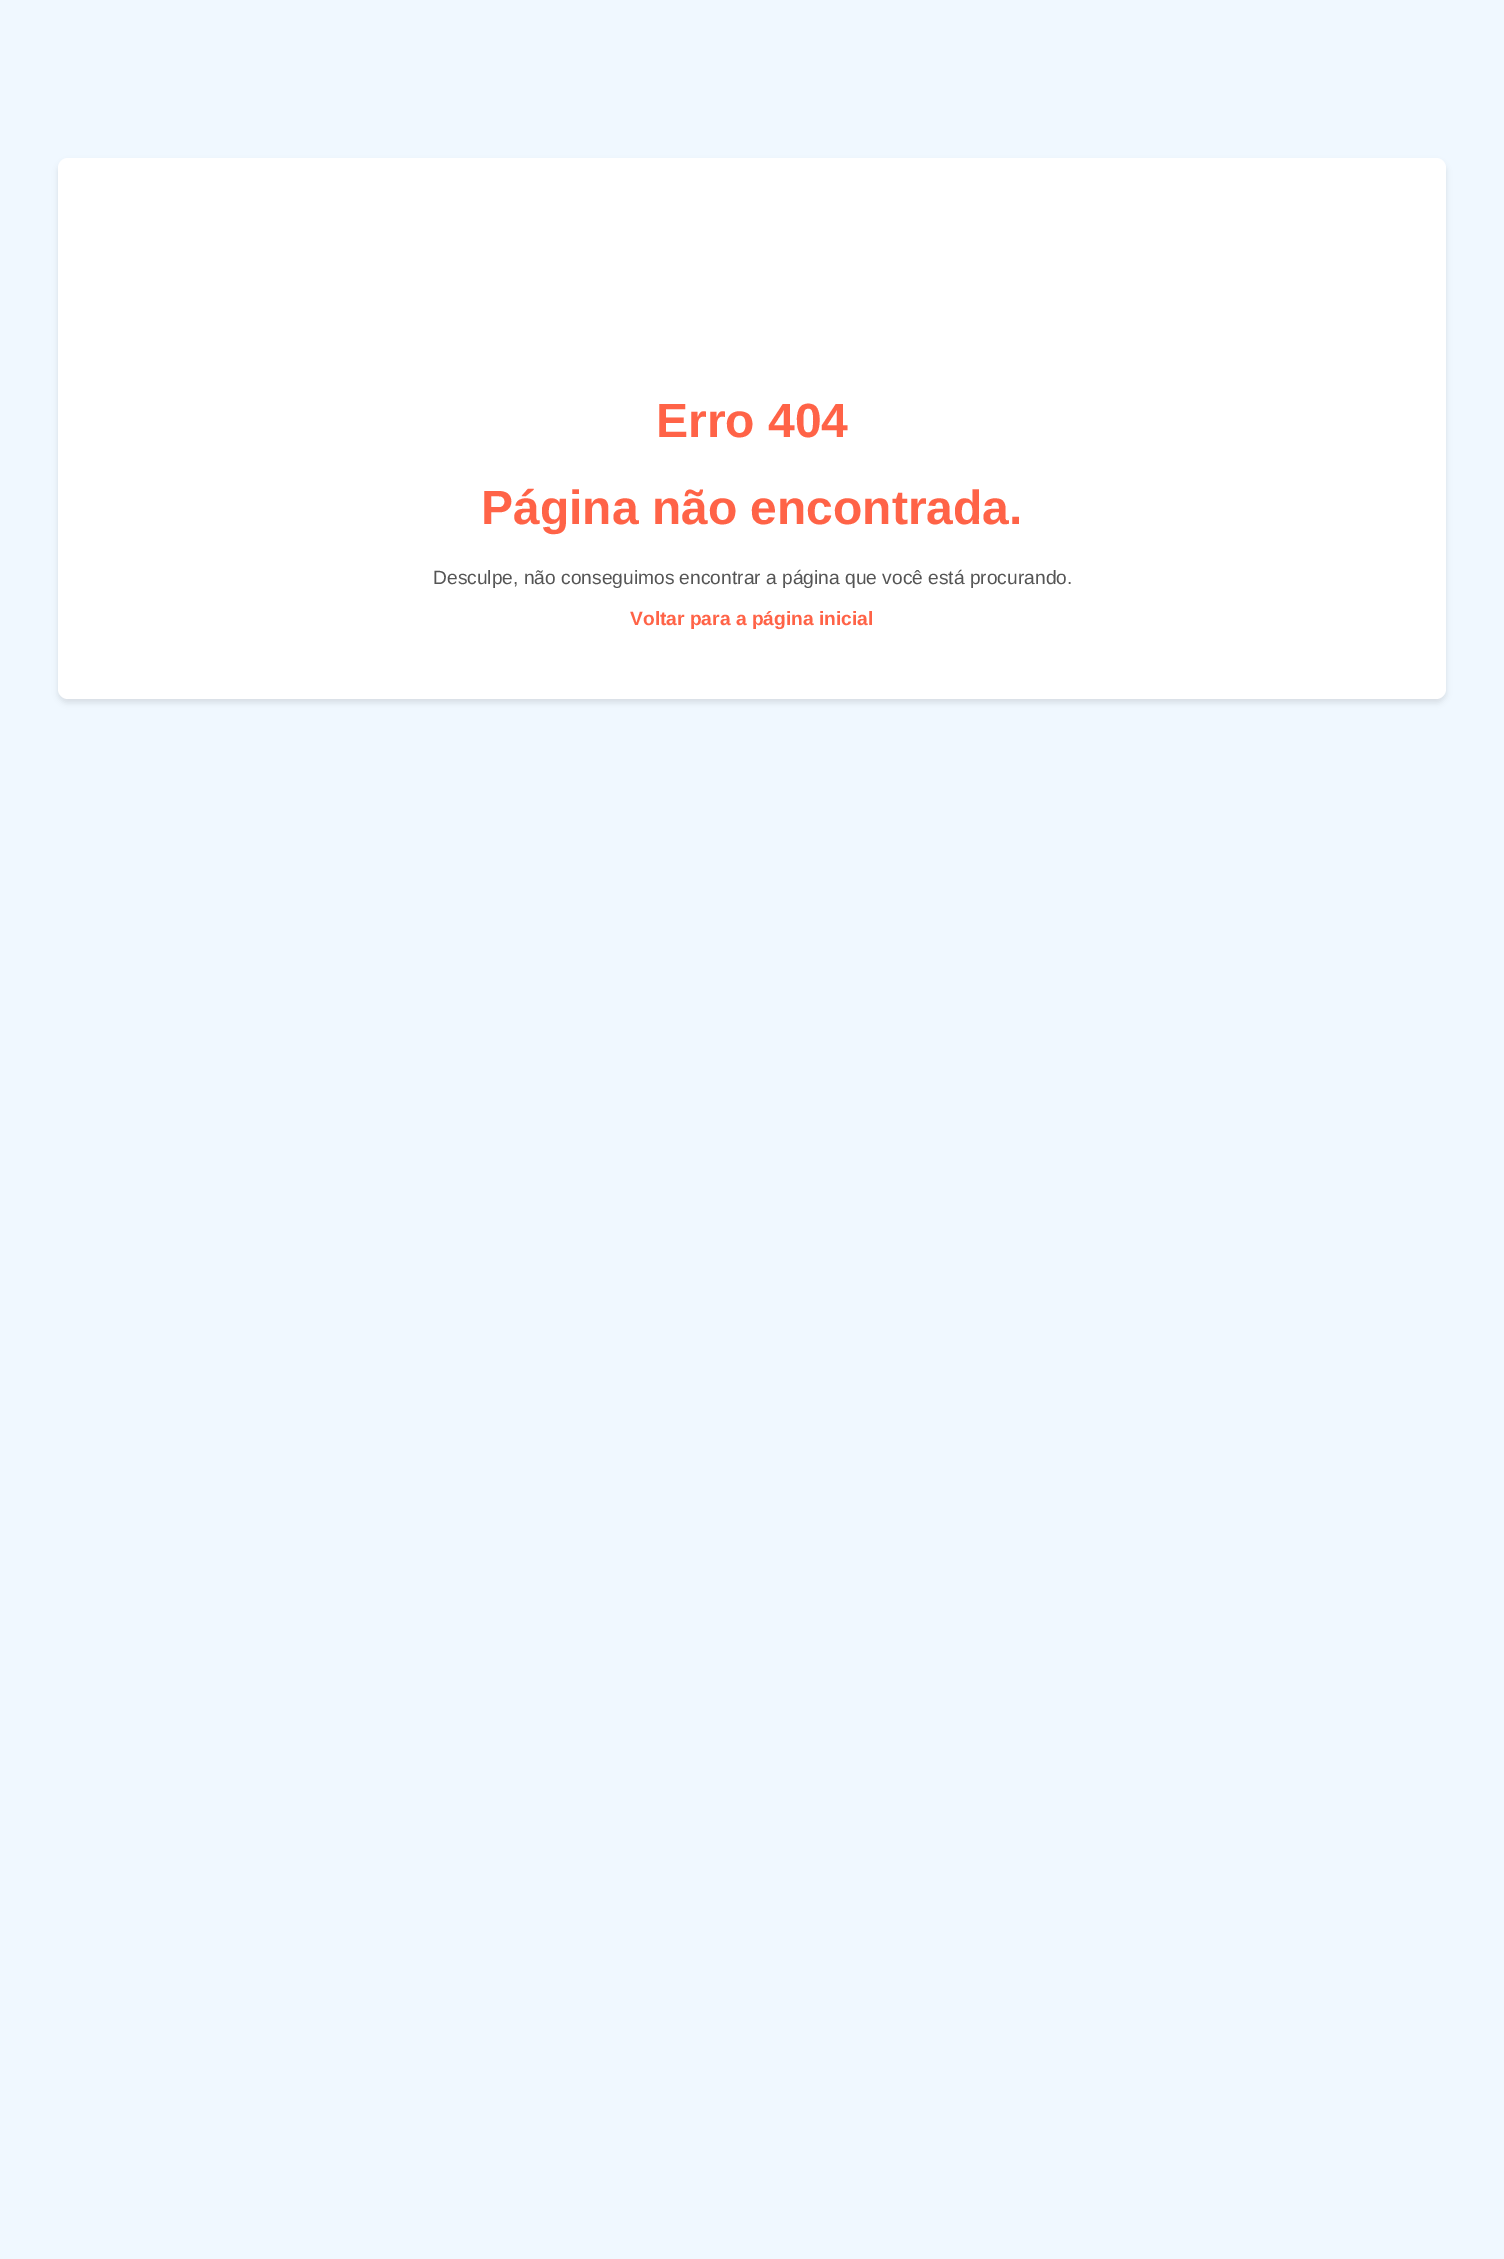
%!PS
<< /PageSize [1504 2259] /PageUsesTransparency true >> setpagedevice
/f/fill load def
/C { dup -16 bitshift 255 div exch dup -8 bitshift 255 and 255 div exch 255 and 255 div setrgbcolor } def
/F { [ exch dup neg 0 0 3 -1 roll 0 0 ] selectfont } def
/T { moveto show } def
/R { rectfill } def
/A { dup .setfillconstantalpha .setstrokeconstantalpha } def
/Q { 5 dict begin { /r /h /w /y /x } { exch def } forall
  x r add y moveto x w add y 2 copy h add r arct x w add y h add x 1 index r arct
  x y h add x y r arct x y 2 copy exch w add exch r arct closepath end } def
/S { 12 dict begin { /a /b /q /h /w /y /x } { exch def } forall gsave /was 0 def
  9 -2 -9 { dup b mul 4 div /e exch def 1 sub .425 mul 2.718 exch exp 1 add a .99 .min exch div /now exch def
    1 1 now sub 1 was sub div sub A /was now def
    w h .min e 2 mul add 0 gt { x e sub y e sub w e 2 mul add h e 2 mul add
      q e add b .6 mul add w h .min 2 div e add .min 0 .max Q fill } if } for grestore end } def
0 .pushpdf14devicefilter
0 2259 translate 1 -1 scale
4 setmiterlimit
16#F0F8FF C
0 0 1504 2259 R
16#000000 C
58 162 1388 541 10 3 .1 S
16#FFFFFF C
58 158 1388 541 10 Q f
/LiberationSans-Bold 48 F
16#FF6347 C
(Erro 404) 656 437 T
(Página não encontrada.) 481 524 T
/LiberationSans-Regular 19.2 F
16#555555 C
(Desculpe, não conseguimos encontrar a página que você está procurando.) 433 584 T
/LiberationSans-Bold 19.2 F
16#FF6347 C
(Voltar para a página inicial) 630 625 T
.poppdf14devicefilter showpage
